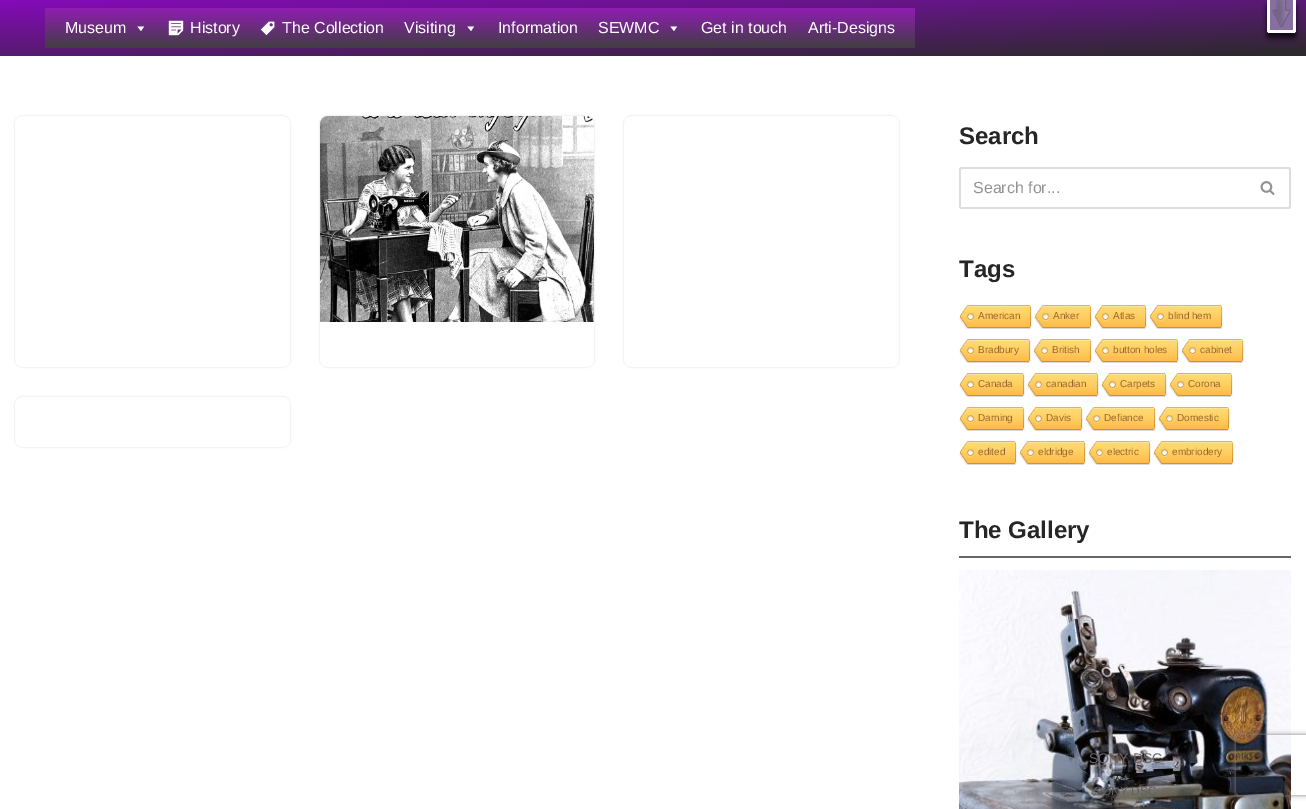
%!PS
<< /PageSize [1306 809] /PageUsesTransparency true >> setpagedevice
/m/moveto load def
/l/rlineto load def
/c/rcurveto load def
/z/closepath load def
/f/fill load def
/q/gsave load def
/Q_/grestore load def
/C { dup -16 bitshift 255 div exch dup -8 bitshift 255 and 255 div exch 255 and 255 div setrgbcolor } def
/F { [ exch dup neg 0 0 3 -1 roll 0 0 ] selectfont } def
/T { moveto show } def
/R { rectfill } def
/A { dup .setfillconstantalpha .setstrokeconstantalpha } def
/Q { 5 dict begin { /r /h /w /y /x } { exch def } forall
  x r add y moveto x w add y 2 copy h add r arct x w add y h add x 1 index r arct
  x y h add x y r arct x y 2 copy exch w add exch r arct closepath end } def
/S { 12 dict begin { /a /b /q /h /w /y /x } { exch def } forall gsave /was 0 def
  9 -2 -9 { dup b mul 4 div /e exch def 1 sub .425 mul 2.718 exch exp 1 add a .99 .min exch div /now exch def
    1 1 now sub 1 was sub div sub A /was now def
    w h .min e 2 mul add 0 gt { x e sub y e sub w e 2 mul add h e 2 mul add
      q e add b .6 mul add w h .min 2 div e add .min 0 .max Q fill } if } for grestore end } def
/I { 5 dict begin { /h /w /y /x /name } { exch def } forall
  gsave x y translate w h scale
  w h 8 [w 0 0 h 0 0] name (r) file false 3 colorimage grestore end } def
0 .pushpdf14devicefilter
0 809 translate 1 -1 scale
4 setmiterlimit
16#FFFFFF C
0 0 1306 809 R
q 0 0 m 1306 0 l 0 56 l -1306 0 l z clip newpath
<< /ShadingType 2 /ColorSpace /DeviceRGB /Coords [651 -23 655 79] /Extend [true true] /Function << /FunctionType 2 /Domain [0 1] /C0 [.514 .043 .714] /C1 [.176 .161 .176] /N 1 >> >> shfill Q_
q 45 8 m 870 0 l 0 40 l -870 0 l z clip newpath
<< /ShadingType 2 /ColorSpace /DeviceRGB /Coords [480 8 480 48] /Extend [true true] /Function << /FunctionType 2 /Domain [0 1] /C0 [.565 .114 .702] /C1 [.251 .243 .263] /N 1 >> >> shfill Q_
/LiberationSans-Regular 16 F
(Museum) 65 33 T
144 26.5 m -3 4.5 l -3.5 -4.5 l z f
(1.rgb) 168 20 16 16 I
(History) 190 33 T
(2.rgb) 260 21 15 15 I
(The Collection) 282 33 T
(Visiting) 404 33 T
474 26.5 m -3 4.5 l -3.5 -4.5 l z f
(Information) 498 33 T
(SEWMC) 598 33 T
677 26.5 m -3 4.5 l -3.5 -4.5 l z f
(Get in touch) 701 33 T
(Arti-Designs) 808 33 T
16#000000 C
15 116 275 251 8 1 .15 S
16#FFFFFF C
15 116 275 251 8 Q f
16#000000 C
320 116 274 251 8 1 .15 S
16#FFFFFF C
320 116 274 251 8 Q f
(3.rgb) 320 116 274 206 I
16#000000 C
624 116 275 251 8 1 .15 S
16#FFFFFF C
624 116 275 251 8 Q f
16#000000 C
15 397 275 50 8 1 .15 S
16#FFFFFF C
15 397 275 50 8 Q f
/LiberationSans-Bold 24 F
16#272626 C
(Search) 959 144 T
16#DDDDDD C
962 167 m 284 0 l 0 42 l -284 0 l -2 0 -3 -1 -3 -3 c 0 -36 l 0 -2 1 -3 3 -3 c z 962 169 m 284 0 l 0 38 l -284 0 l -1 0 l 0 -37 l z eofill
/LiberationSans-Regular 16 F
16#939393 C
(Search for...) 973 193 T
16#DDDDDD C
1246 167 m 42 0 l 2 0 3 1 3 3 c 0 36 l 0 2 -1 3 -3 3 c -42 0 l z 1246 169 m 42 0 l 1 0 1 0 1 1 c 0 36 l 0 1 0 1 -1 1 c -42 0 l z eofill
(4.rgb) 1260 181 15 14 I
/LiberationSans-Bold 24 F
16#272626 C
(Tags) 959 277 T
(5.rgb) 959 305 71 24 I
/LiberationSans-Regular 10 F
16#996633 C
(American) 978 319 T
(6.rgb) 1030 305 2 24 I
(7.rgb) 1034 305 56 24 I
(Anker) 1053 319 T
(6.rgb) 1090 305 2 24 I
(8.rgb) 1094 305 51 24 I
(Atlas) 1113 319 T
(6.rgb) 1145 305 2 24 I
(9.rgb) 1149 305 72 24 I
(blind hem) 1168 319 T
(6.rgb) 1221 305 2 24 I
(10.rgb) 959 339 70 24 I
(Bradbury) 978 353 T
(6.rgb) 1029 339 2 24 I
(11.rgb) 1033 339 57 24 I
(British) 1052 353 T
(6.rgb) 1090 339 2 24 I
(12.rgb) 1094 339 83 24 I
(button holes) 1113 353 T
(6.rgb) 1177 339 2 24 I
(13.rgb) 1181 339 61 24 I
(cabinet) 1200 353 T
(6.rgb) 1242 339 2 24 I
(14.rgb) 959 373 64 24 I
(Canada) 978 387 T
(6.rgb) 1023 373 2 24 I
(10.rgb) 1027 373 70 24 I
(canadian) 1046 387 T
(6.rgb) 1097 373 2 24 I
(14.rgb) 1101 373 64 24 I
(Carpets) 1120 387 T
(6.rgb) 1165 373 2 24 I
(15.rgb) 1169 373 62 24 I
(Corona) 1188 387 T
(6.rgb) 1231 373 2 24 I
(14.rgb) 959 407 64 24 I
(Darning) 978 421 T
(6.rgb) 1023 407 2 24 I
(16.rgb) 1027 407 54 24 I
(Davis) 1046 421 T
(6.rgb) 1081 407 2 24 I
(17.rgb) 1085 407 69 24 I
(Defiance) 1104 421 T
(6.rgb) 1154 407 2 24 I
(18.rgb) 1158 407 70 24 I
(Domestic) 1177 421 T
(6.rgb) 1228 407 2 24 I
(19.rgb) 959 441 56 24 I
(edited) 978 455 T
(6.rgb) 1015 441 2 24 I
(20.rgb) 1019 441 65 24 I
(eldridge) 1038 455 T
(6.rgb) 1084 441 2 24 I
(21.rgb) 1088 441 61 24 I
(electric) 1107 455 T
(6.rgb) 1149 441 2 24 I
(22.rgb) 1153 441 79 24 I
(embriodery) 1172 455 T
(6.rgb) 1232 441 2 24 I
/LiberationSans-Bold 24 F
16#272626 C
(The Gallery) 959 538 T
16#666666 C
959 556 332 2 R
(23.rgb) 959 570 332 239 I
/LiberationSans-Regular 14 F
16#686569 C
(SONY DSC) 1089 763 T
/LiberationSans-Regular 12 F
16#61605F C
(SONY DSC) 1094 795 T
16#000000 C
1267 5 29 33 2 2.5 .75 S
16#886FA1 C
1267 0 m 29 0 l 0 31 l 0 1 -1 2 -2 2 c -25 0 l -1 0 -2 -1 -2 -2 c z f
(24.rgb) 1272 0 19 28 I
16#FFFFFF C
1293 0 3 32 R
1268 30 27 3 R
1267 0 3 32 R
q
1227 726 m 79 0 l 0 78 l -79 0 l z 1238 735 m 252 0 l 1 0 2 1 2 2 c 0 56 l 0 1 -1 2 -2 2 c -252 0 l -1 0 -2 -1 -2 -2 c 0 -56 l 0 -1 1 -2 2 -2 c z eoclip newpath
16#808080 C
1236 735 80 60 2 2.5 1 S
Q_
.poppdf14devicefilter showpage
